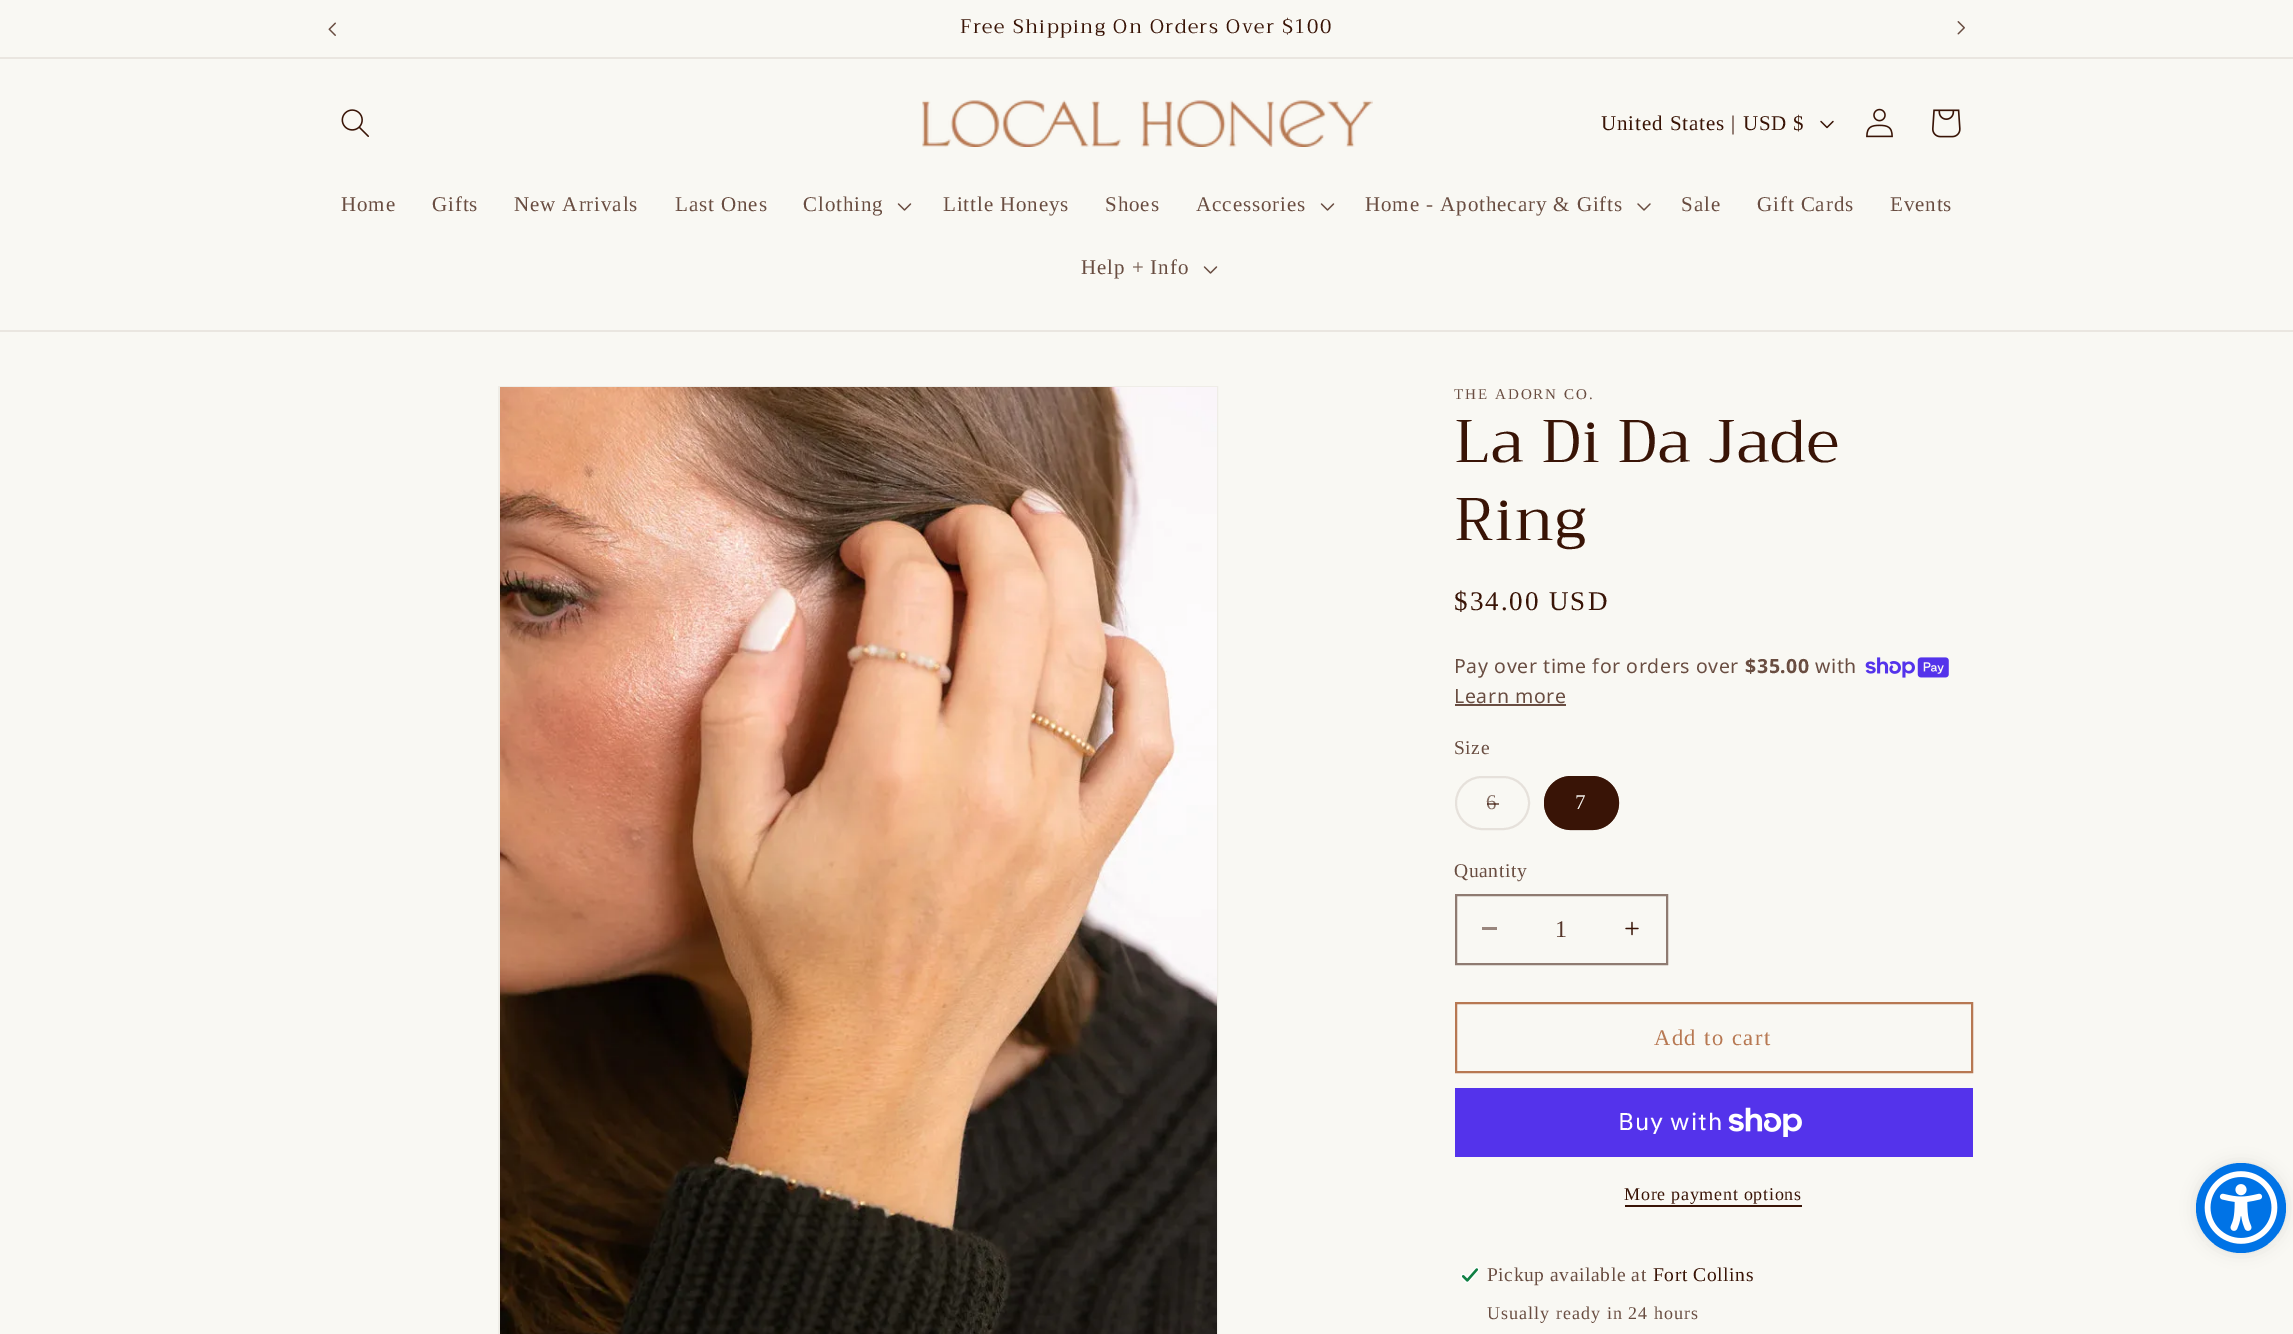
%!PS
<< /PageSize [2293 1334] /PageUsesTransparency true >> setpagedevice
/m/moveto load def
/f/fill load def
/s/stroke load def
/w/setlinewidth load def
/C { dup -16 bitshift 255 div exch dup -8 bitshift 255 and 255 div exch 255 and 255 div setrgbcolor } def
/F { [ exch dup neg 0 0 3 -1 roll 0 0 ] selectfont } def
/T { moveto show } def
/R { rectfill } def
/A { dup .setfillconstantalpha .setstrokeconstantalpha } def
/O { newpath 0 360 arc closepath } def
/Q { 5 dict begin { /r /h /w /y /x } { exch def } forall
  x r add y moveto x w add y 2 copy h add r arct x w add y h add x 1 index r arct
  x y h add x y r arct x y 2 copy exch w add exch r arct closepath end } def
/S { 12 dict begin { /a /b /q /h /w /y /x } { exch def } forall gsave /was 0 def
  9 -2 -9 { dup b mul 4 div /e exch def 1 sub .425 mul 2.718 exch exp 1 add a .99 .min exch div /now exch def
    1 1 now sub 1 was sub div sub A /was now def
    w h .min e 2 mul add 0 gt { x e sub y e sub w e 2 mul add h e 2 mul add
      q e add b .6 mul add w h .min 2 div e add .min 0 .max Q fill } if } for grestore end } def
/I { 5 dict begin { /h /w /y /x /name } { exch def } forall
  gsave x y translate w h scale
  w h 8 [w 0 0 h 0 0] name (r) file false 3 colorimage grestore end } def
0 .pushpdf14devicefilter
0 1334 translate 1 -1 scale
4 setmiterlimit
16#F9F8F3 C
0 0 2293 1334 R
16#EAE6E0 C
0 57 2293 2 R
(1.rgb) 328 22 8 14 I
/Trirong-Regular 19.5 F
16#391406 C
960 33 m 1.5 0 (Free Shipping On Orders Over $100) ashow
(2.rgb) 1957 21 8 14 I
16#EAE6E0 C
0 330 2293 2 R
(3.rgb) 341 109 28 28 I
(4.rgb) 922 100 451 47 I
/LiberationSerif-Regular 21 F
16#391406 C
1601 130 m .9 0 (United States | USD $) ashow
(5.rgb) 1820 120 14 9 I
(6.rgb) 1866 108 27 30 I
(7.rgb) 1932 109 29 29 I
16#694D41 C
341 211 m .9 0 (Home) ashow
432 211 m .9 0 (Gifts) ashow
514 211 m .9 0 (New Arrivals) ashow
675 211 m .9 0 (Last Ones) ashow
803 211 m .9 0 (Clothing) ashow
(8.rgb) 897 203 15 8 I
943 211 m .9 0 (Little Honeys) ashow
1105 211 m .9 0 (Shoes) ashow
1196 211 m .9 0 (Accessories) ashow
(8.rgb) 1320 203 15 8 I
1365 211 m .9 0 (Home - Apothecary & Gifts) ashow
(9.rgb) 1637 203 14 8 I
1681 211 m .9 0 (Sale) ashow
1757 211 m .9 0 (Gift Cards) ashow
1890 211 m .9 0 (Events) ashow
1081 274 m .9 0 (Help + Info) ashow
(8.rgb) 1203 266 15 8 I
16#EFEDE7 C
2 w
499 387 718 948 rectstroke
(10.rgb) 500 387 717 947 I
/LiberationSerif-Regular 15 F
16#694D41 C
1454 399 m 2 0 (THE ADORN CO.) ashow
/Trirong-Regular 60 F
16#391406 C
1454 462 m .9 0 (La Di Da Jade) ashow
1454 540 m .9 0 (Ring) ashow
/LiberationSerif-Regular 27 F
1454 610 m 2 0 ($34.00 USD) ashow
/NotoSans-Regular 19.5 F
16#694D41 C
1454 673 m .6 0 (Pay over time for orders over) ashow
/NotoSans-Bold 19.5 F
1745 673 m .6 0 ($35.00) ashow
/NotoSans-Regular 19.5 F
1815 673 m .6 0 (with) ashow
(11.rgb) 1865 657 84 21 I
1454 703 m .6 0 (Learn more) ashow
1455 704 111 2 R
/LiberationSerif-Regular 19.5 F
1454 754 m .6 0 (Size) ashow
16#E6E1DB C
1456 777 73 52 26 Q s
/LiberationSerif-Regular 21 F
16#866F65 C
1486 809 m 1.5 0 (6) ashow
0.6 A
16#391406 C
1487 803 12 2 R
1 A
1544 776 75 54 27 Q f
0.55 A
1545 777 73 52 26 Q s
1 A
16#F9F8F3 C
1575 809 m 1.5 0 (7) ashow
/LiberationSerif-Regular 19.5 F
16#694D41 C
1454 877 m .6 0 (Quantity) ashow
16#99867D C
1482 927 15 3 R
(12.rgb) 1625 921 14 15 I
16#8F7B71 C
1456 895 211 69 rectstroke
/LiberationSerif-Regular 24 F
16#56362A C
(1) 1555 937 T
16#B77852 C
1456 1003 516 69 rectstroke
/LiberationSerif-Regular 22.5 F
1654 1045 m 1.5 0 (Add to cart) ashow
16#5433EB C
1455 1088 518 69 R
/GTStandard-Regular 24 F
16#FFFFFF C
1618 1130 m .9 0 (Buy with) ashow
(13.rgb) 1728 1107 74 30 I
/LiberationSerif-Regular 18 F
16#391406 C
1624 1200 m .75 0 (More payment options) ashow
1625 1205 177 2 R
(14.rgb) 1460 1267 20 16 I
/LiberationSerif-Regular 19.5 F
16#694D41 C
1487 1281 m .6 0 (Pickup available at) ashow
16#391406 C
1653 1281 m .6 0 (Fort Collins) ashow
/LiberationSerif-Regular 18 F
16#694D41 C
1487 1319 m 1.05 0 (Usually ready in 24 hours) ashow
16#000000 C
2196 1163 90 90 45 7.5 .1 S
16#0073E6 C
2241 1208 45 O f
(15.rgb) 2204 1171 74 73 I
.poppdf14devicefilter showpage
